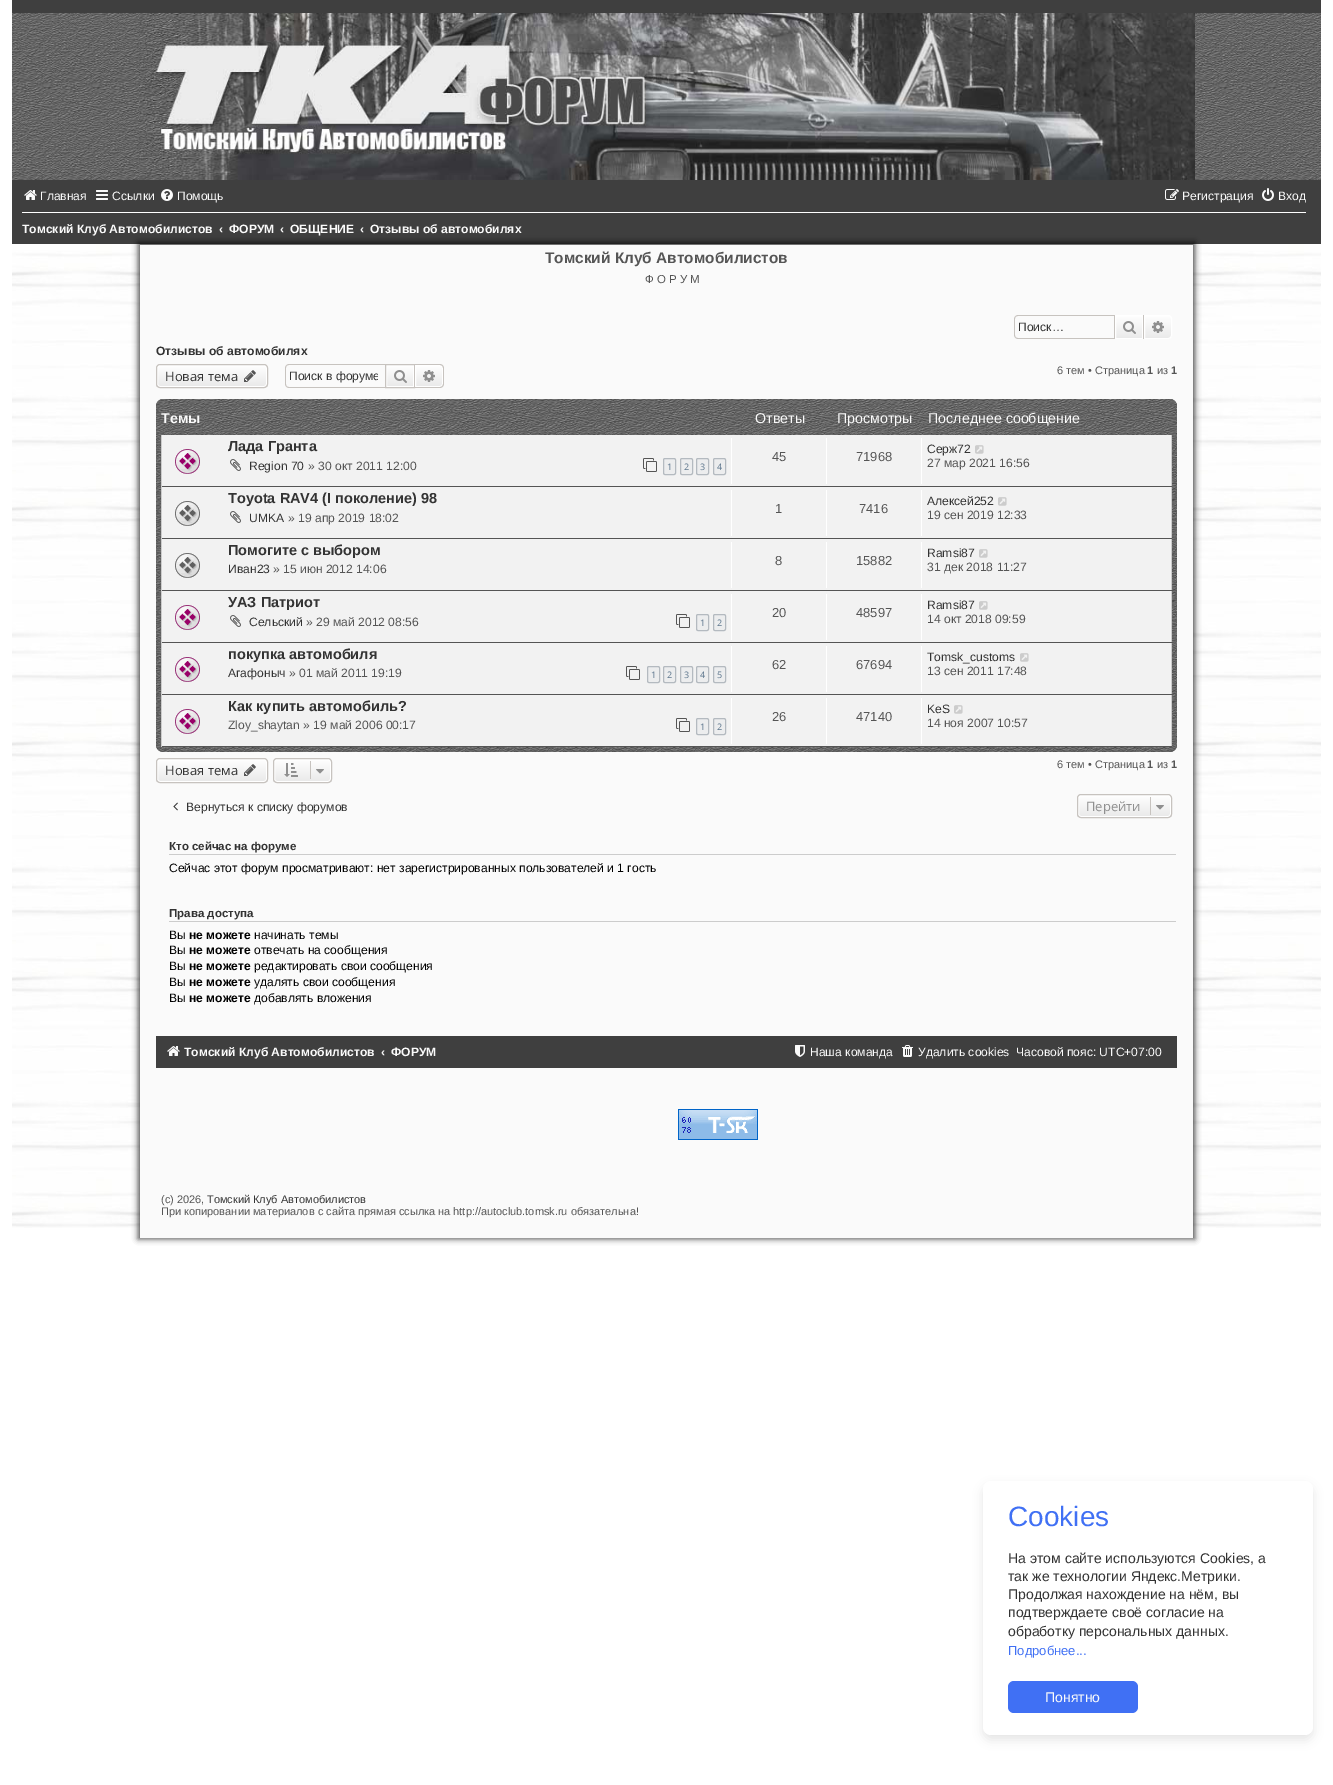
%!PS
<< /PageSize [1333 1785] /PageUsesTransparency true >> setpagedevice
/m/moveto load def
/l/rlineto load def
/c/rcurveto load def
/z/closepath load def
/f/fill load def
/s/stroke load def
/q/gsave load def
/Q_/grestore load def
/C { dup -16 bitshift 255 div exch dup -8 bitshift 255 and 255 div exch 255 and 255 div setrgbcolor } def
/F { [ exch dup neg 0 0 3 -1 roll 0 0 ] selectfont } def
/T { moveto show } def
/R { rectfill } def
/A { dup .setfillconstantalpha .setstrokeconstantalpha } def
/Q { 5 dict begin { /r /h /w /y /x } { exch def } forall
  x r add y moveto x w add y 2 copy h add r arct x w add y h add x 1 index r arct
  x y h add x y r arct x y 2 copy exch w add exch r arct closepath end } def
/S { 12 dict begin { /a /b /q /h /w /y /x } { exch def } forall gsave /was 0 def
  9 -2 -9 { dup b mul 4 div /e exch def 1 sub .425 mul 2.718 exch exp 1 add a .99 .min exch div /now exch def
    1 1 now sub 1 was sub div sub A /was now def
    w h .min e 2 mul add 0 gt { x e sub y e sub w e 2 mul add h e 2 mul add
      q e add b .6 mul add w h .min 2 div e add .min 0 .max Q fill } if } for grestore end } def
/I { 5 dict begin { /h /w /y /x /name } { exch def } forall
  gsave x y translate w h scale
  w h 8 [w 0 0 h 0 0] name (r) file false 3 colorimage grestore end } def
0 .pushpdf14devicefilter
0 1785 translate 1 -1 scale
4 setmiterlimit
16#FFFFFF C
0 0 1333 1785 R
(1.rgb) 12 244 1309 984 I
(2.rgb) 12 13 1309 167 I
16#3F3F3F C
12 0 1309 13 R
(3.rgb) 139 13 1056 167 I
12 180 1309 64 R
(4.rgb) 24 190 13 10 I
/LiberationSans-Regular 12.1 F
16#FAFAFA C
(Главная) 40 200 T
(5.rgb) 96 190 12 10 I
(Ссылки) 112 200 T
(6.rgb) 161 189 12 12 I
(Помощь) 177 200 T
(7.rgb) 1165 189 14 11 I
(Регистрация) 1182 200 T
(8.rgb) 1262 188 12 13 I
(Вход) 1278 200 T
16#FFFFFF C
22 212 1284 1 R
16#020202 C
138 242 1057 997 0 3 .7 S
/LiberationSans-Bold 12.1 F
16#FAFAFA C
(Томский Клуб Автомобилистов) 22 233 T
(‹) 219 233 T
(ФОРУМ) 229 233 T
(‹) 280 233 T
(ОБЩЕНИЕ) 290 233 T
(‹) 360 233 T
(Отзывы об автомобилях) 370 233 T
140 245 1053 993 R
/LiberationSans-Bold 15.4 F
16#555555 C
(Томский Клуб Автомобилистов) 545 263 T
/LiberationSans-Regular 11.5 F
(Ф О Р У М) 645 283 T
16#C7C3BF C
1018 315 m 96 0 l 0 24 l -96 0 l -2 0 -4 -2 -4 -4 c 0 -16 l 0 -2 2 -4 4 -4 c z 1018 316 m 96 0 l 0 22 l -96 0 l -2 0 -3 -1 -3 -3 c 0 -16 l 0 -2 1 -3 3 -3 c z eofill
/LiberationSans-Regular 12.1 F
16#333333 C
(Поиск…) 1018 331 T
q 1116 316 m 26 0 l 0 22 l -26 0 l z clip newpath
<< /ShadingType 2 /ColorSpace /DeviceRGB /Coords [1129 315 1129 339] /Extend [true true] /Function << /FunctionType 2 /Domain [0 1] /C0 [1 1 1] /C1 [.914 .914 .914] /N 1 >> >> shfill Q_
16#FFFFFF C
1115.5 315.5 27 23 rectstroke
16#C7C3BF C
1143 315 1 24 R
1114 315 1 24 R
(9.rgb) 1123 321 13 13 I
q 1144.5 315.5 m 23.5 0 l 2 0 3.5 1.5 3.5 3.5 c 0 16 l 0 2 -1.5 3.5 -3.5 3.5 c -23.5 0 l z clip newpath
<< /ShadingType 2 /ColorSpace /DeviceRGB /Coords [1158 315 1158 339] /Extend [true true] /Function << /FunctionType 2 /Domain [0 1] /C0 [1 1 1] /C1 [.914 .914 .914] /N 1 >> >> shfill Q_
16#FFFFFF C
1144.5 315.5 m 23.5 0 l 2 0 3.5 1.5 3.5 3.5 c 0 16 l 0 2 -1.5 3.5 -3.5 3.5 c -23.5 0 l z s
(10.rgb) 1152 321 12 12 I
/LiberationSans-Bold 12.1 F
16#333333 C
(Отзывы об автомобилях) 156 355 T
q
156 364 112 24 4 Q clip newpath
q 156 365 m 112 0 l 0 22 l -112 0 l z clip newpath
<< /ShadingType 2 /ColorSpace /DeviceRGB /Coords [212 365 212 387] /Extend [true true] /Function << /FunctionType 2 /Domain [0 1] /C0 [1 1 1] /C1 [.914 .914 .914] /N 1 >> >> shfill Q_
Q_
16#FFFFFF C
157.5 365.5 109 21 2.5 Q s
16#C7C3BF C
156.5 364.5 111 23 3.5 Q s
/OpenSans-Regular 13 F
16#333333 C
(Новая тема) 165 381 T
(11.rgb) 244 370 12 12 I
16#C7C3BF C
289 364 m 96 0 l 0 24 l -96 0 l -2 0 -4 -2 -4 -4 c 0 -16 l 0 -2 2 -4 4 -4 c z 289 365 m 96 0 l 0 22 l -96 0 l -2 0 -3 -1 -3 -3 c 0 -16 l 0 -2 1 -3 3 -3 c z eofill
q
289 369 89 14 rectclip
/LiberationSans-Regular 12.1 F
16#333333 C
(Поиск в форуме) 289 380 T
Q_
q 387 366 m 26 0 l 0 20 l -26 0 l z clip newpath
<< /ShadingType 2 /ColorSpace /DeviceRGB /Coords [400 365 400 387] /Extend [true true] /Function << /FunctionType 2 /Domain [0 1] /C0 [1 1 1] /C1 [.914 .914 .914] /N 1 >> >> shfill Q_
16#FFFFFF C
386.5 365.5 27 21 rectstroke
16#C7C3BF C
385.5 364.5 29 23 rectstroke
(12.rgb) 394 370 13 13 I
q 415.5 365.5 m 24.5 0 l 1.5 0 2.5 1 2.5 2.5 c 0 16 l 0 1.5 -1 2.5 -2.5 2.5 c -24.5 0 l z clip newpath
<< /ShadingType 2 /ColorSpace /DeviceRGB /Coords [429 365 429 387] /Extend [true true] /Function << /FunctionType 2 /Domain [0 1] /C0 [1 1 1] /C1 [.914 .914 .914] /N 1 >> >> shfill Q_
16#FFFFFF C
415.5 365.5 m 24.5 0 l 1.5 0 2.5 1 2.5 2.5 c 0 16 l 0 1.5 -1 2.5 -2.5 2.5 c -24.5 0 l z s
16#C7C3BF C
415 364 m 25 0 l 2 0 4 2 4 4 c 0 16 l 0 2 -2 4 -4 4 c -25 0 l z 415 365 m 25 0 l 1.5 0 3 1.5 3 3 c 0 16 l 0 1.5 -1.5 3 -3 3 c -25 0 l z eofill
(13.rgb) 423 370 12 12 I
/LiberationSans-Regular 11 F
16#555555 C
(6 тем • Страница) 1057 374 T
/LiberationSans-Bold 11 F
(1) 1147 374 T
/LiberationSans-Regular 11 F
(из) 1157 374 T
/LiberationSans-Bold 11 F
(1) 1171 374 T
(14.rgb) 156 399 1021 353 I
/LiberationSans-Bold 14.25 F
16#FAFAFA C
(Темы) 161 423 T
/LiberationSans-Regular 14.25 F
(Ответы) 755 423 T
(Просмотры) 837 423 T
(Последнее сообщение) 928 423 T
16#F2F2F2 C
162 435 1009 51 R
16#CCCCCC C
1171 435 1 312 R
16#555555 C
161 486 1011 1 R
16#CCCCCC C
161 435 1 52 R
(15.rgb) 175 449 25 25 I
/LiberationSans-Bold 14.5 F
16#333333 C
(Лада Гранта) 228 451 T
(16.rgb) 230 459 11 12 I
/LiberationSans-Regular 12.1 F
(Region 70) 249 470 T
16#555555 C
(» 30 окт 2011 12:00) 308 470 T
(17.rgb) 643 458 14 14 I
16#ECEDEE C
663.5 458.5 12 16 1.5 Q q f Q_
16#B4BAC0 C
s
/OpenSans-Regular 9 F
16#5C758C C
(1) 667 470 T
16#ECEDEE C
680.5 458.5 12 16 1.5 Q q f Q_
16#B4BAC0 C
s
16#5C758C C
(2) 684 470 T
16#ECEDEE C
696.5 458.5 12 16 1.5 Q q f Q_
16#B4BAC0 C
s
16#5C758C C
(3) 700 470 T
16#ECEDEE C
713.5 458.5 12 16 1.5 Q q f Q_
16#B4BAC0 C
s
16#5C758C C
(4) 717 470 T
16#FFFFFF C
731 438 1 46 R
/LiberationSans-Regular 13 F
16#555555 C
(45) 772 461 T
16#FFFFFF C
826 438 1 46 R
16#555555 C
(71968) 856 461 T
16#FFFFFF C
921 438 1 46 R
/LiberationSans-Regular 12.1 F
16#333333 C
(Серж72) 927 453 T
(18.rgb) 975 445 9 9 I
16#555555 C
(27 мар 2021 16:56) 927 467 T
16#F2F2F2 C
162 487 1009 51 R
16#555555 C
161 538 1011 1 R
16#CCCCCC C
161 487 1 52 R
(19.rgb) 175 501 25 25 I
/LiberationSans-Bold 14.5 F
16#333333 C
(Toyota RAV4 \(I поколение\) 98) 228 503 T
(16.rgb) 230 511 11 12 I
/LiberationSans-Regular 12.1 F
(UMKA) 249 522 T
16#555555 C
(» 19 апр 2019 18:02) 288 522 T
16#FFFFFF C
731 490 1 46 R
/LiberationSans-Regular 13 F
16#555555 C
(1) 775 513 T
16#FFFFFF C
826 490 1 46 R
16#555555 C
(7416) 859 513 T
16#FFFFFF C
921 490 1 46 R
/LiberationSans-Regular 12.1 F
16#333333 C
(Алексей252) 927 505 T
(18.rgb) 998 497 9 9 I
16#555555 C
(19 сен 2019 12:33) 927 519 T
16#F2F2F2 C
162 539 1009 51 R
16#555555 C
161 590 1011 1 R
16#CCCCCC C
161 539 1 52 R
(19.rgb) 175 553 25 25 I
/LiberationSans-Bold 14.5 F
16#333333 C
(Помогите с выбором) 228 555 T
/LiberationSans-Regular 12.1 F
(Иван23) 228 573 T
16#555555 C
(» 15 июн 2012 14:06) 273 573 T
16#FFFFFF C
731 542 1 46 R
/LiberationSans-Regular 13 F
16#555555 C
(8) 775 565 T
16#FFFFFF C
826 542 1 46 R
16#555555 C
(15882) 856 565 T
16#FFFFFF C
921 542 1 46 R
/LiberationSans-Regular 12.1 F
16#333333 C
(Ramsi87) 927 557 T
(18.rgb) 979 549 9 9 I
16#555555 C
(31 дек 2018 11:27) 927 571 T
16#F2F2F2 C
162 591 1009 51 R
16#555555 C
161 642 1011 1 R
16#CCCCCC C
161 591 1 52 R
(15.rgb) 175 605 25 25 I
/LiberationSans-Bold 14.5 F
16#333333 C
(УАЗ Патриот) 228 607 T
(16.rgb) 230 615 11 12 I
/LiberationSans-Regular 12.1 F
(Сельский) 249 626 T
16#555555 C
(» 29 май 2012 08:56) 306 626 T
(17.rgb) 676 614 14 14 I
16#ECEDEE C
696.5 614.5 12 16 1.5 Q q f Q_
16#B4BAC0 C
s
/OpenSans-Regular 9 F
16#5C758C C
(1) 700 626 T
16#ECEDEE C
713.5 614.5 12 16 1.5 Q q f Q_
16#B4BAC0 C
s
16#5C758C C
(2) 717 626 T
16#FFFFFF C
731 594 1 46 R
/LiberationSans-Regular 13 F
16#555555 C
(20) 772 617 T
16#FFFFFF C
826 594 1 46 R
16#555555 C
(48597) 856 617 T
16#FFFFFF C
921 594 1 46 R
/LiberationSans-Regular 12.1 F
16#333333 C
(Ramsi87) 927 609 T
(18.rgb) 979 601 9 9 I
16#555555 C
(14 окт 2018 09:59) 927 623 T
16#F2F2F2 C
162 643 1009 51 R
16#555555 C
161 694 1011 1 R
16#CCCCCC C
161 643 1 52 R
(15.rgb) 175 657 25 25 I
/LiberationSans-Bold 14.5 F
16#333333 C
(покупка автомобиля) 228 659 T
/LiberationSans-Regular 12.1 F
(Агафоныч) 228 677 T
16#555555 C
(» 01 май 2011 19:19) 289 677 T
(17.rgb) 626 666 14 14 I
16#ECEDEE C
647.5 666.5 12 16 1.5 Q q f Q_
16#B4BAC0 C
s
/OpenSans-Regular 9 F
16#5C758C C
(1) 651 678 T
16#ECEDEE C
663.5 666.5 12 16 1.5 Q q f Q_
16#B4BAC0 C
s
16#5C758C C
(2) 667 678 T
16#ECEDEE C
680.5 666.5 12 16 1.5 Q q f Q_
16#B4BAC0 C
s
16#5C758C C
(3) 684 678 T
16#ECEDEE C
696.5 666.5 12 16 1.5 Q q f Q_
16#B4BAC0 C
s
16#5C758C C
(4) 700 678 T
16#ECEDEE C
713.5 666.5 12 16 1.5 Q q f Q_
16#B4BAC0 C
s
16#5C758C C
(5) 717 678 T
16#FFFFFF C
731 646 1 46 R
/LiberationSans-Regular 13 F
16#555555 C
(62) 772 669 T
16#FFFFFF C
826 646 1 46 R
16#555555 C
(67694) 856 669 T
16#FFFFFF C
921 646 1 46 R
/LiberationSans-Regular 12.1 F
16#333333 C
(Tomsk_customs) 927 661 T
(18.rgb) 1020 653 9 9 I
16#555555 C
(13 сен 2011 17:48) 927 675 T
16#F2F2F2 C
162 695 1009 51 R
16#555555 C
161 746 1011 1 R
16#CCCCCC C
161 695 1 52 R
(15.rgb) 175 709 25 25 I
/LiberationSans-Bold 14.5 F
16#333333 C
(Как купить автомобиль?) 228 711 T
/LiberationSans-Regular 12.1 F
16#555555 C
(Zloy_shaytan » 19 май 2006 00:17) 228 729 T
(17.rgb) 676 718 14 14 I
16#ECEDEE C
696.5 718.5 12 16 1.5 Q q f Q_
16#B4BAC0 C
s
/OpenSans-Regular 9 F
16#5C758C C
(1) 700 730 T
16#ECEDEE C
713.5 718.5 12 16 1.5 Q q f Q_
16#B4BAC0 C
s
16#5C758C C
(2) 717 730 T
16#FFFFFF C
731 698 1 46 R
/LiberationSans-Regular 13 F
16#555555 C
(26) 772 721 T
16#FFFFFF C
826 698 1 46 R
16#555555 C
(47140) 856 721 T
16#FFFFFF C
921 698 1 46 R
/LiberationSans-Regular 12.1 F
16#333333 C
(KeS) 927 713 T
(18.rgb) 954 705 9 9 I
16#555555 C
(14 ноя 2007 10:57) 927 727 T
q
156 758 112 25 4 Q clip newpath
q 156 759 m 112 0 l 0 23 l -112 0 l z clip newpath
<< /ShadingType 2 /ColorSpace /DeviceRGB /Coords [212 759 212 782] /Extend [true true] /Function << /FunctionType 2 /Domain [0 1] /C0 [1 1 1] /C1 [.914 .914 .914] /N 1 >> >> shfill Q_
Q_
16#FFFFFF C
157.5 759.5 109 22 2.5 Q s
16#C7C3BF C
156.5 758.5 111 24 3.5 Q s
/OpenSans-Regular 13 F
16#333333 C
(Новая тема) 165 775 T
(11.rgb) 244 764 12 12 I
q
273 758 59 25 4 Q clip newpath
q 273 759 m 59 0 l 0 23 l -59 0 l z clip newpath
<< /ShadingType 2 /ColorSpace /DeviceRGB /Coords [303 759 303 782] /Extend [true true] /Function << /FunctionType 2 /Domain [0 1] /C0 [1 1 1] /C1 [.914 .914 .914] /N 1 >> >> shfill Q_
Q_
16#FFFFFF C
274.5 759.5 56 22 2.5 Q s
16#C7C3BF C
273.5 758.5 58 24 3.5 Q s
(20.rgb) 284 763 14 14 I
310 761 1 18 R
(21.rgb) 316 769 8 5 I
/LiberationSans-Regular 11 F
16#555555 C
(6 тем • Страница) 1057 768 T
/LiberationSans-Bold 11 F
(1) 1147 768 T
/LiberationSans-Regular 11 F
(из) 1157 768 T
/LiberationSans-Bold 11 F
(1) 1171 768 T
(22.rgb) 173 802 5 9 I
/LiberationSans-Regular 12.1 F
16#333333 C
(Вернуться к списку форумов) 186 811 T
q
1077 794 95 24 4 Q clip newpath
q 1077 795 m 95 0 l 0 22 l -95 0 l z clip newpath
<< /ShadingType 2 /ColorSpace /DeviceRGB /Coords [1125 795 1125 817] /Extend [true true] /Function << /FunctionType 2 /Domain [0 1] /C0 [1 1 1] /C1 [.914 .914 .914] /N 1 >> >> shfill Q_
Q_
16#FFFFFF C
1078.5 795.5 92 21 2.5 Q s
16#C7C3BF C
1077.5 794.5 94 23 3.5 Q s
/OpenSans-Regular 13 F
16#8F8F8F C
(Перейти) 1086 811 T
16#C7C3BF C
1150 797 1 18 R
(21.rgb) 1156 805 8 5 I
16#CCCCCC C
169 854 1007 1 R
/LiberationSans-Bold 11.5 F
16#333333 C
(Кто сейчас на форуме) 169 850 T
/LiberationSans-Regular 12.1 F
16#000000 C
(Сейчас этот форум просматривают: нет зарегистрированных пользователей и 1 гость) 169 872 T
16#CCCCCC C
169 921 1007 1 R
/LiberationSans-Bold 11.5 F
16#333333 C
(Права доступа) 169 917 T
/LiberationSans-Regular 12.1 F
16#000000 C
(Вы) 169 939 T
/LiberationSans-Bold 12.1 F
(не можете) 189 939 T
/LiberationSans-Regular 12.1 F
(начинать темы) 254 939 T
(Вы) 169 954 T
/LiberationSans-Bold 12.1 F
(не можете) 189 954 T
/LiberationSans-Regular 12.1 F
(отвечать на сообщения) 254 954 T
(Вы) 169 970 T
/LiberationSans-Bold 12.1 F
(не можете) 189 970 T
/LiberationSans-Regular 12.1 F
(редактировать свои сообщения) 254 970 T
(Вы) 169 986 T
/LiberationSans-Bold 12.1 F
(не можете) 189 986 T
/LiberationSans-Regular 12.1 F
(удалять свои сообщения) 254 986 T
(Вы) 169 1002 T
/LiberationSans-Bold 12.1 F
(не можете) 189 1002 T
/LiberationSans-Regular 12.1 F
(добавлять вложения) 254 1002 T
16#3F3F3F C
156 1036 1021 32 R
(4.rgb) 167 1046 13 10 I
/LiberationSans-Bold 12.1 F
16#FAFAFA C
(Томский Клуб Автомобилистов) 184 1056 T
(‹) 381 1056 T
(ФОРУМ) 391 1056 T
(23.rgb) 795 1045 10 12 I
/LiberationSans-Regular 12.1 F
(Наша команда) 810 1056 T
(24.rgb) 902 1045 11 12 I
(Удалить cookies) 918 1056 T
(Часовой пояс: UTC+07:00) 1016 1056 T
(25.rgb) 678 1109 80 31 I
/LiberationSans-Regular 11 F
16#555555 C
(\(c\) 2026,) 161 1203 T
16#333333 C
(Томский Клуб Автомобилистов) 207 1203 T
16#555555 C
(При копировании материалов с сайта прямая ссылка на http://autoclub.tomsk.ru обязательна!) 161 1215 T
16#000000 C
983 1486 330 254 8 5 .1 S
16#FFFFFF C
983 1481 330 254 8 Q f
/LiberationSans-Regular 28 F
16#4070F4 C
(Cookies) 1008 1526 T
/LiberationSans-Regular 14 F
16#333333 C
(На этом сайте используются Cookies, а) 1008 1563 T
(так же технологии Яндекс.Метрики.) 1008 1581 T
(Продолжая нахождение на нём, вы) 1008 1599 T
(подтверждаете своё согласие на) 1008 1617 T
(обработку персональных данных.) 1008 1636 T
/LiberationSans-Regular 13 F
16#4070F4 C
(Подробнее...) 1008 1655 T
1008 1681 130 32 6 Q f
/LiberationSans-Regular 14 F
16#FAFAFA C
(Понятно) 1045 1702 T
.poppdf14devicefilter showpage
